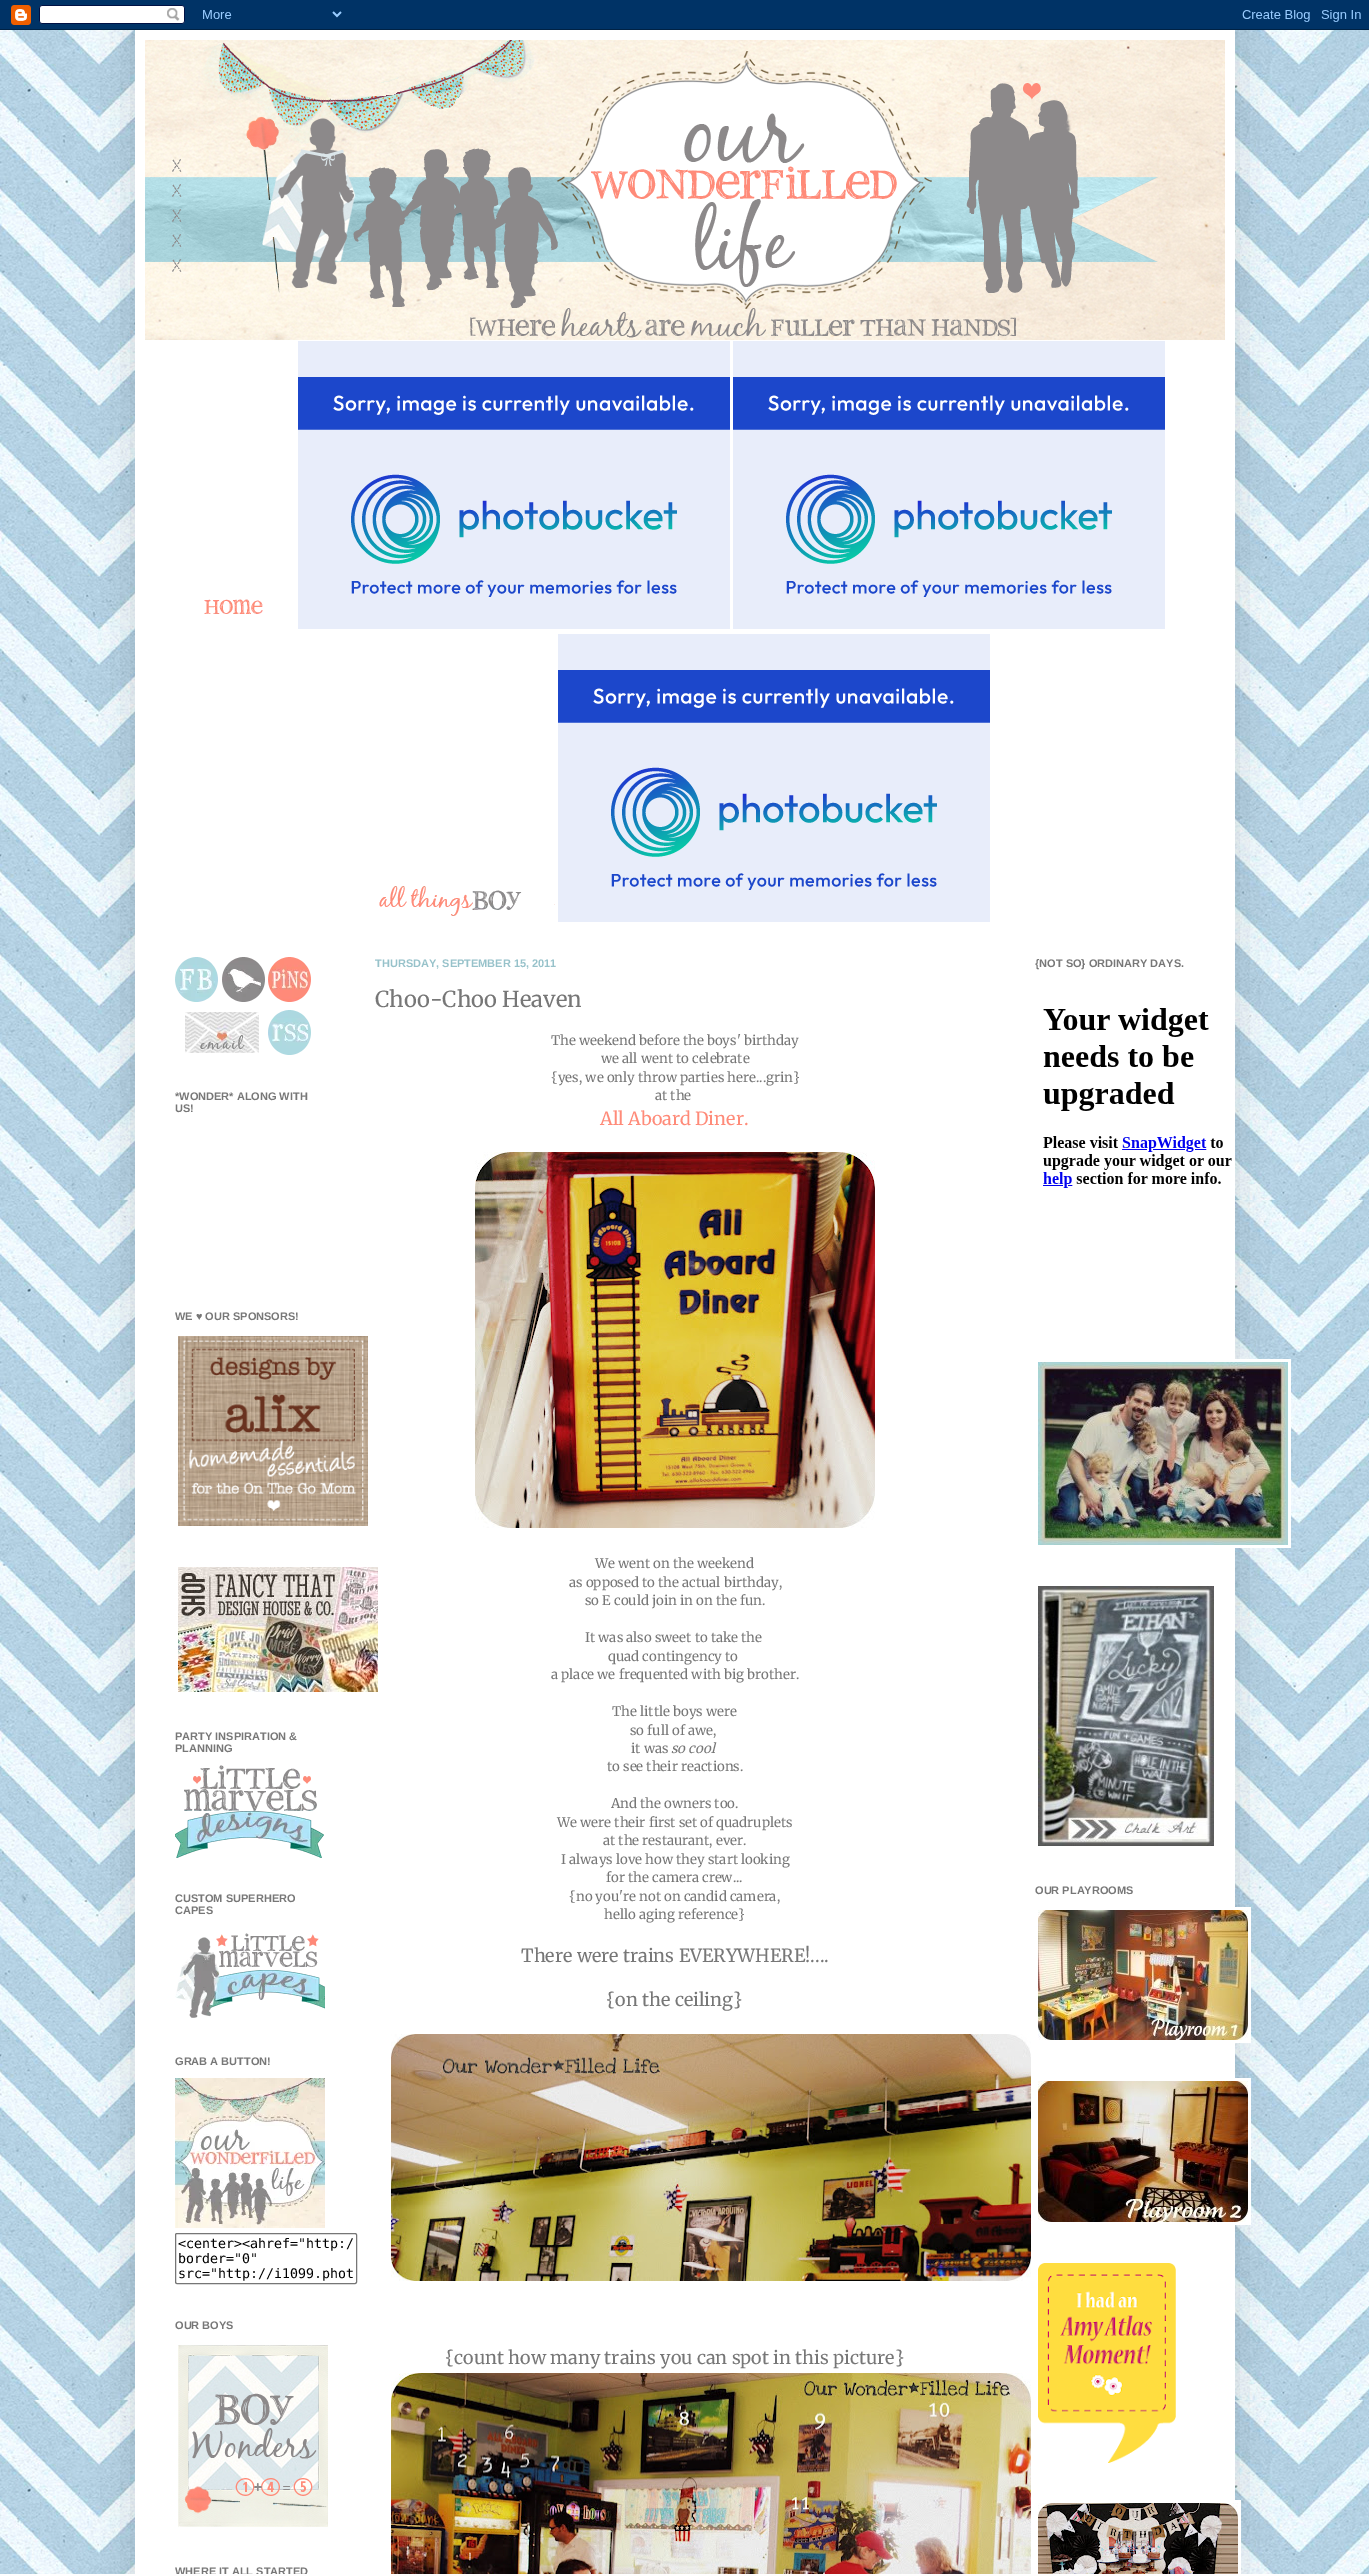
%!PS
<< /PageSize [1369 2574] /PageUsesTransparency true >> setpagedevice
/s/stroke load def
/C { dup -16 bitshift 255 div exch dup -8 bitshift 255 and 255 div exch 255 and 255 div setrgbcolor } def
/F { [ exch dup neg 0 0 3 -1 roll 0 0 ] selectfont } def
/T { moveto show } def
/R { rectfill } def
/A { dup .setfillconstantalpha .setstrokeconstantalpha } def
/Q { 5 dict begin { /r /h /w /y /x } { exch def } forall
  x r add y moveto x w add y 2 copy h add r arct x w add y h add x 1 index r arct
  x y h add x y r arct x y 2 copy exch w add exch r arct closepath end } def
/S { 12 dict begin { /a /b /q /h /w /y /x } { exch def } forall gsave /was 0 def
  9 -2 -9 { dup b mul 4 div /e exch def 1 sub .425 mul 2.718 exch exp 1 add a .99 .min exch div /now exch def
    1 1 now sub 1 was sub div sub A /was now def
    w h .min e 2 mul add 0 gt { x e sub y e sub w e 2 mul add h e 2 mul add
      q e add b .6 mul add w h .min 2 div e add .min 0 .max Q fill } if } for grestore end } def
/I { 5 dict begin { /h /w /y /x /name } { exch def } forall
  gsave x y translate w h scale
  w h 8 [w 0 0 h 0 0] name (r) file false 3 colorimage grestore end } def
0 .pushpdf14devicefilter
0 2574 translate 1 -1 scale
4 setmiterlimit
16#FFFFFF C
0 0 1369 2574 R
(1.rgb) 0 400 1369 2174 I
(3.rgb) 0 30 1369 370 I
16#000000 C
135 30 1100 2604 0 20 .15 S
(2.rgb) 0 0 1369 30 I
16#FFFFFF C
135 30 1100 2544 R
(4.rgb) 145 40 1080 300 I
(5.rgb) 204 599 59 15 I
(6.rgb) 298 341 432 288 I
(6.rgb) 733 341 432 288 I
(7.rgb) 379 886 176 30 I
(6.rgb) 558 634 432 288 I
(8.rgb) 175 957 43 45 I
(9.rgb) 222 957 43 45 I
(10.rgb) 268 957 43 45 I
(11.rgb) 185 1012 74 41 I
(12.rgb) 268 1010 43 45 I
/LiberationSans-Bold 11 F
16#777777 C
(*WONDER* ALONG WITH) 175 1100 T
(US!) 175 1112 T
(WE ♥ OUR SPONSORS!) 175 1320 T
(13.rgb) 178 1336 190 190 I
(14.rgb) 178 1567 200 125 I
(PARTY INSPIRATION &) 175 1740 T
(PLANNING) 175 1752 T
(15.rgb) 175 1765 149 93 I
(CUSTOM SUPERHERO) 175 1902 T
(CAPES) 175 1914 T
(16.rgb) 175 1933 150 85 I
(GRAB A BUTTON!) 175 2065 T
(17.rgb) 175 2078 150 150 I
16#767676 C
175.5 2233.5 181 50 1.5 Q s
/DejaVuSansMono-Regular 13.3 F
16#000000 C
(<center><ahref="http:/) 178 2248 T
(border="0") 178 2263 T
(src="http://i1099.phot) 178 2278 T
/LiberationSans-Bold 11 F
16#777777 C
(OUR BOYS) 175 2329 T
(18.rgb) 178 2345 150 182 I
(WHERE IT ALL STARTED) 175 2575 T
16#97C2CA C
(THURSDAY, SEPTEMBER 15, 2011) 375 967 T
/Merriweather-Light 22 F
16#777777 C
(Choo-Choo Heaven) 375 1007 T
/Merriweather-Light 13.25 F
(The weekend before the boys' birthday) 551 1045 T
(we all went to celebrate) 601 1063 T
({yes, we only throw parties here...grin}) 551 1082 T
(at the) 655 1100 T
/Merriweather-Light 18 F
16#FF8B79 C
(All Aboard Diner.) 600 1125 T
(19.rgb) 475 1152 400 376 I
/Merriweather-Light 13.25 F
16#777777 C
(We went on the weekend) 595 1568 T
(as opposed to the actual birthday,) 569 1587 T
(so E could join in on the fun.) 585 1605 T
(It was also sweet to take the) 585 1642 T
(quad contingency to) 608 1661 T
(a place we frequented with big brother.) 551 1679 T
(The little boys were) 612 1716 T
(so full of awe,) 630 1735 T
(it was) 631 1753 T
/Merriweather-LightItalic 13.25 F
(so cool) 671 1753 T
/Merriweather-Light 13.25 F
(to see their reactions.) 607 1771 T
(And the owners too.) 611 1808 T
(We were their first set of quadruplets) 557 1827 T
(at the restaurant, ever.) 603 1845 T
(I always love how they start looking) 561 1864 T
(for the camera crew...) 606 1882 T
({no you're not on candid camera,) 569 1901 T
(hello aging reference}) 604 1919 T
/Merriweather-Light 18 F
(There were trains EVERYWHERE!....) 521 1962 T
({on the ceiling}) 606 2006 T
(20.rgb) 391 2034 640 247 I
({count how many trains you can spot in this picture}) 445 2364 T
(21.rgb) 391 2373 640 201 I
/LiberationSans-Bold 11 F
({NOT SO} ORDINARY DAYS.) 1035 967 T
(22.rgb) 1043 1008 189 180 I
16#FFFFFF C
1235 1359 56 189 R
(23.rgb) 1038 1362 250 183 I
(24.rgb) 1038 1586 176 260 I
16#777777 C
(OUR PLAYROOMS) 1035 1894 T
16#FFFFFF C
1235 1907 16 136 R
(25.rgb) 1038 1910 210 130 I
1235 2078 16 147 R
(26.rgb) 1038 2081 210 141 I
(27.rgb) 1038 2263 138 200 I
1235 2500 6 74 R
(28.rgb) 1038 2503 200 71 I
.poppdf14devicefilter showpage
